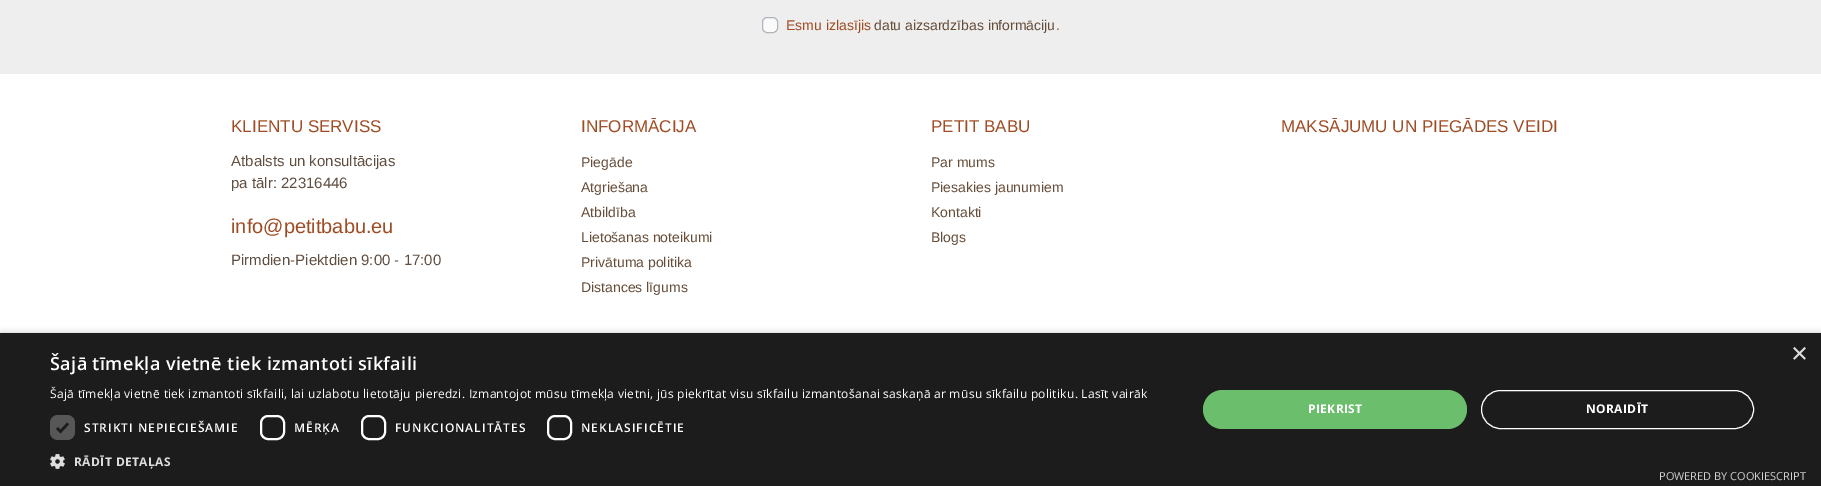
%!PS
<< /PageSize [1821 486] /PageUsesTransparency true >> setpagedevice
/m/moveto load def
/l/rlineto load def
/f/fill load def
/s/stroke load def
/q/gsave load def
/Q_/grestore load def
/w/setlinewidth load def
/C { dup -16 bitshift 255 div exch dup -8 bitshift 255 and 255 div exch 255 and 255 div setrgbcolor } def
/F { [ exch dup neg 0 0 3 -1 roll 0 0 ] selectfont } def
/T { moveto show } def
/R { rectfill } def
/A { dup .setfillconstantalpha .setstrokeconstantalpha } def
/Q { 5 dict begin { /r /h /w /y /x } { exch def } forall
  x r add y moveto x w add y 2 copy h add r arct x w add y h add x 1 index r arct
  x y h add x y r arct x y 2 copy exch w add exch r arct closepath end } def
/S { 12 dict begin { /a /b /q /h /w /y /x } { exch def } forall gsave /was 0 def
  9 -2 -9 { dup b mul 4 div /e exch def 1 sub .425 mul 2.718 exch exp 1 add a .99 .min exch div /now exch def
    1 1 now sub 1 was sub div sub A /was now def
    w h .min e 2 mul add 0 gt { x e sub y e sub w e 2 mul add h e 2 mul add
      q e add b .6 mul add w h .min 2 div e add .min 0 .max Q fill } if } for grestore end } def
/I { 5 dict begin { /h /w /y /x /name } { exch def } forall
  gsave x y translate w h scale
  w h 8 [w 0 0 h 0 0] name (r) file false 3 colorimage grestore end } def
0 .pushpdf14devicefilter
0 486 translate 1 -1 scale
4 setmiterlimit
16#FFFFFF C
0 0 1821 486 R
16#EEEEEE C
0 0 1821 74 R
16#FAFAFA C
762.5 17.5 15 15 4.5 Q q f Q_
16#ADB5BD C
s
/LiberationSans-Regular 14 F
16#9F4B23 C
(Esmu izlasījis) 786 30 T
16#654C39 C
(datu aizsardzības informāciju) 874 30 T
16#9F4B23 C
(.) 1056 30 T
/LiberationSans-Regular 17 F
(KLIENTU SERVISS) 231 132 T
/LiberationSans-Regular 15 F
16#5F4D3F C
(Atbalsts un konsultācijas) 231 166 T
(pa tālr: 22316446) 231 188 T
/LiberationSans-Regular 20 F
16#9F4B23 C
(info@petitbabu.eu) 231 233 T
/LiberationSans-Regular 15 F
16#5F4D3F C
(Pirmdien-Piektdien 9:00 - 17:00) 231 265 T
/LiberationSans-Regular 17 F
16#9F4B23 C
(INFORMĀCIJA) 581 132 T
/LiberationSans-Regular 14 F
16#654C39 C
(Piegāde) 581 167 T
(Atgriešana) 581 192 T
(Atbildība) 581 217 T
(Lietošanas noteikumi) 581 242 T
(Privātuma politika) 581 267 T
(Distances līgums) 581 292 T
/LiberationSans-Regular 17 F
16#9F4B23 C
(PETIT BABU) 931 132 T
/LiberationSans-Regular 14 F
16#654C39 C
(Par mums) 931 167 T
(Piesakies jaunumiem) 931 192 T
(Kontakti) 931 217 T
(Blogs) 931 242 T
/LiberationSans-Regular 17 F
16#9F4B23 C
(MAKSĀJUMU UN PIEGĀDES VEIDI) 1281 132 T
16#000000 C
1 335 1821 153 0 4 .35 S
16#1C1C1C C
0 333 1821 153 R
/OpenSans-SemiBold 18 F
16#FFFFFF C
50 370 m .4 0 (Šajā tīmekļa vietnē tiek izmantoti sīkfaili) ashow
/OpenSans-Regular 12 F
50 398 m .3 0 (Šajā tīmekļa vietnē tiek izmantoti sīkfaili, lai uzlabotu lietotāju pieredzi. Izmantojot mūsu tīmekļa vietni, jūs piekrītat visu sīkfailu izmantošanai saskaņā ar mūsu sīkfailu politiku. Lasīt vairāk) ashow
16#575757 C
50 415 25 25 8 Q f
16#1C1C1C C
2.6 w
57 428 m 3.5 3.5 l 7.5 -8 l s
/OpenSans-SemiBold 12 F
16#FFFFFF C
84 432 m 1 0 (STRIKTI NEPIECIEŠAMIE) ashow
2 w
261 416 23 23 7 Q s
294 432 m 1 0 (MĒRĶA) ashow
362 416 23 23 7 Q s
395 432 m 1 0 (FUNKCIONALITĀTES) ashow
548 416 23 23 7 Q s
581 432 m 1 0 (NEKLASIFICĒTIE) ashow
(1.rgb) 50 454 15 15 I
/OpenSans-Bold 12 F
16#DDDDDD C
74 466 m .4 0 (RĀDĪT DETAĻAS) ashow
16#6BBE6B C
1203 390 264 39 19.5 Q f
16#FFFFFF C
1308 413 m .4 0 (PIEKRIST) ashow
1 w
1481.5 390.5 272 38 19 Q s
1586 413 m .4 0 (NORAIDĪT) ashow
/LiberationSans-Regular 29 F
16#DDDDDD C
(×) 1791 363 T
/OpenSans-Regular 11 F
16#D2D2D2 C
(POWERED BY COOKIESCRIPT) 1659 480 T
.poppdf14devicefilter showpage
